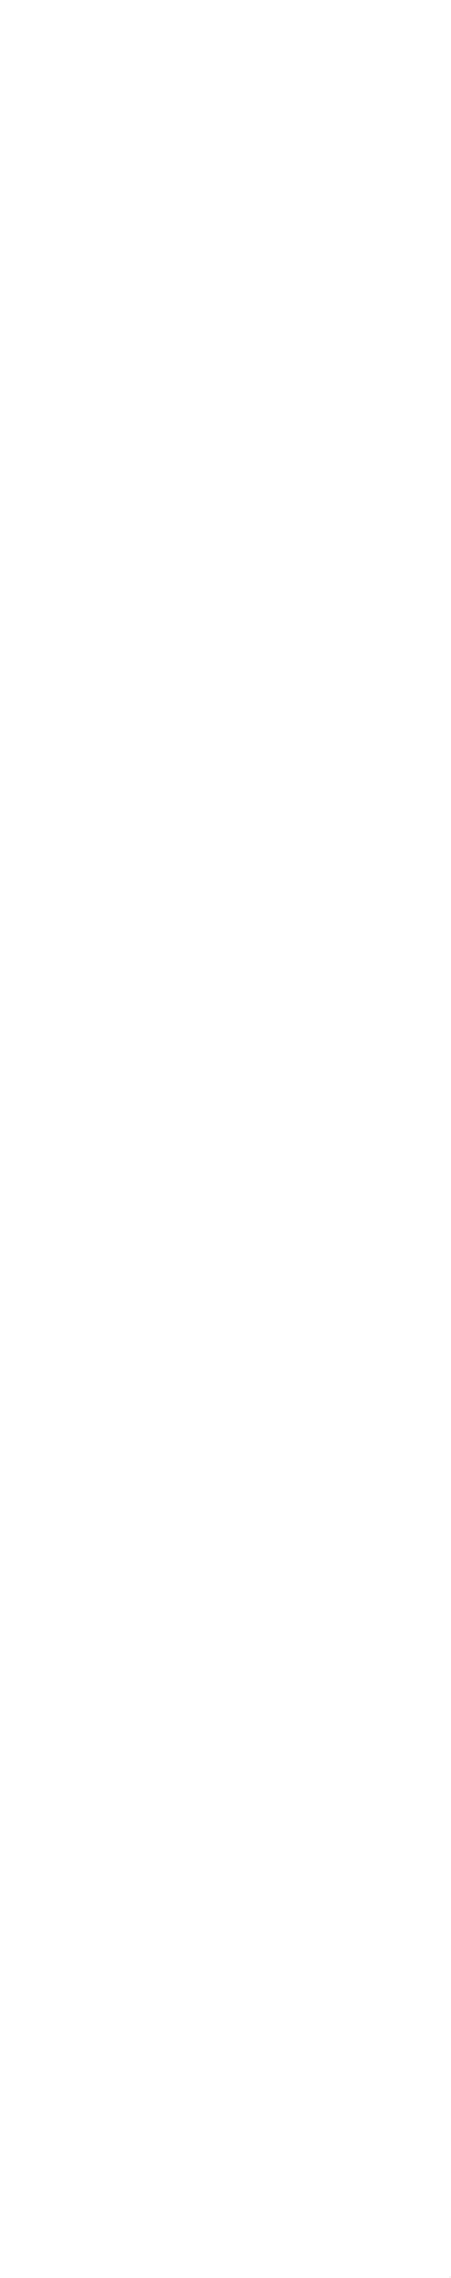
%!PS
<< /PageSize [451 2278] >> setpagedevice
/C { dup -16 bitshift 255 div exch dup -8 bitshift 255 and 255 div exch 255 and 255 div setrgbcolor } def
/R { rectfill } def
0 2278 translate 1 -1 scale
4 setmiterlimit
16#FFFFFF C
0 0 451 2278 R
16#F5F5F5 C
449 2276 2 2 R
showpage
